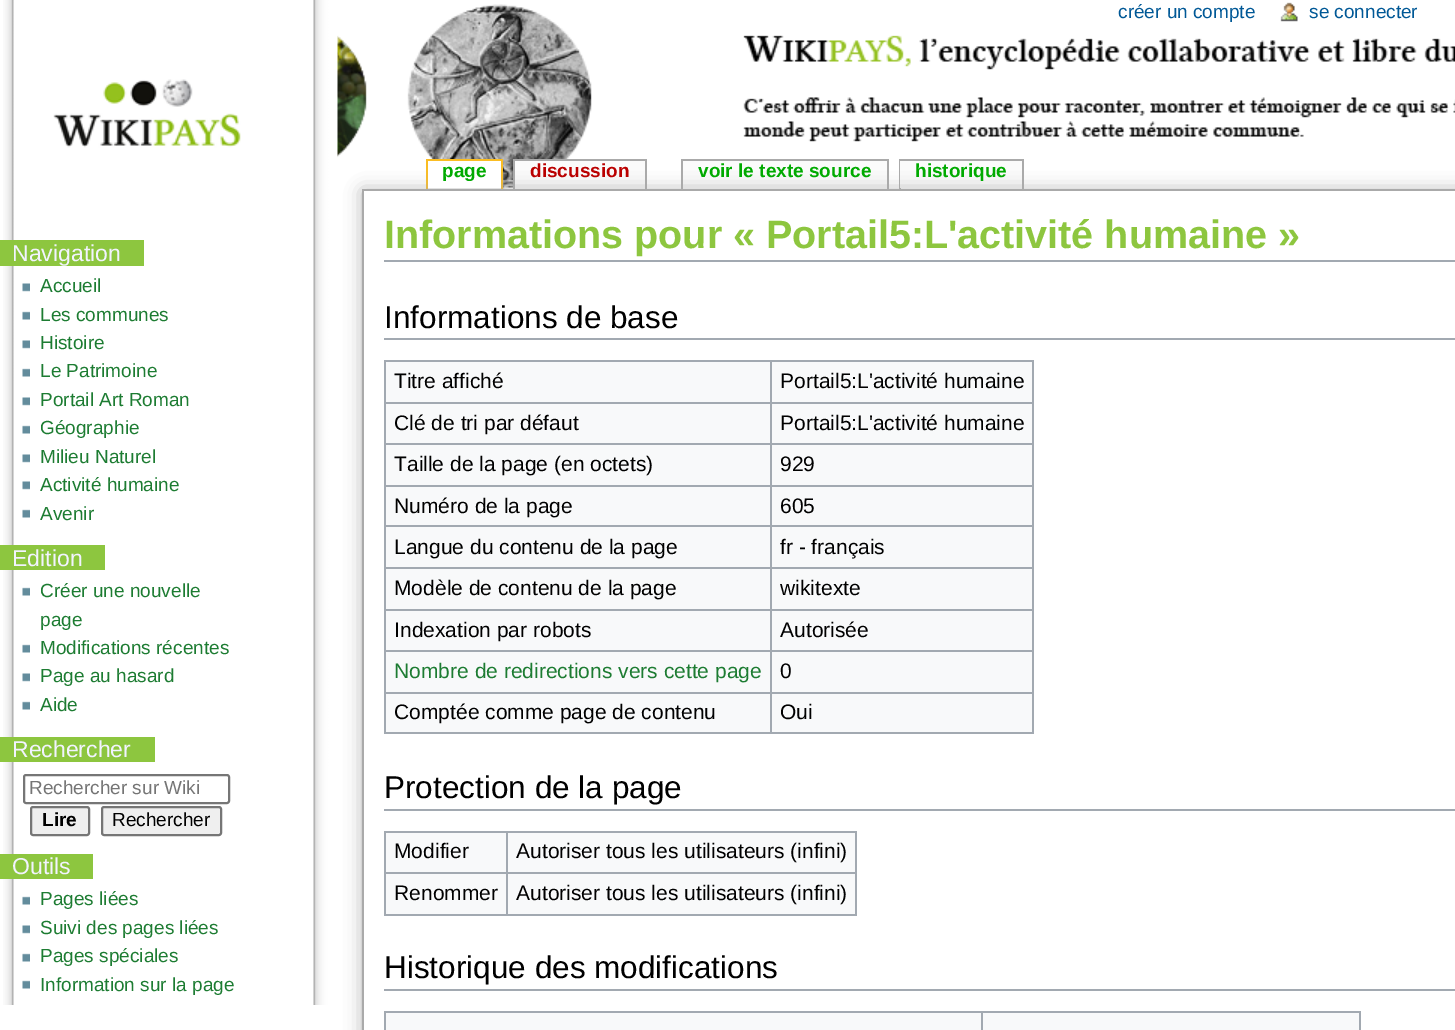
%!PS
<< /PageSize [1455 1030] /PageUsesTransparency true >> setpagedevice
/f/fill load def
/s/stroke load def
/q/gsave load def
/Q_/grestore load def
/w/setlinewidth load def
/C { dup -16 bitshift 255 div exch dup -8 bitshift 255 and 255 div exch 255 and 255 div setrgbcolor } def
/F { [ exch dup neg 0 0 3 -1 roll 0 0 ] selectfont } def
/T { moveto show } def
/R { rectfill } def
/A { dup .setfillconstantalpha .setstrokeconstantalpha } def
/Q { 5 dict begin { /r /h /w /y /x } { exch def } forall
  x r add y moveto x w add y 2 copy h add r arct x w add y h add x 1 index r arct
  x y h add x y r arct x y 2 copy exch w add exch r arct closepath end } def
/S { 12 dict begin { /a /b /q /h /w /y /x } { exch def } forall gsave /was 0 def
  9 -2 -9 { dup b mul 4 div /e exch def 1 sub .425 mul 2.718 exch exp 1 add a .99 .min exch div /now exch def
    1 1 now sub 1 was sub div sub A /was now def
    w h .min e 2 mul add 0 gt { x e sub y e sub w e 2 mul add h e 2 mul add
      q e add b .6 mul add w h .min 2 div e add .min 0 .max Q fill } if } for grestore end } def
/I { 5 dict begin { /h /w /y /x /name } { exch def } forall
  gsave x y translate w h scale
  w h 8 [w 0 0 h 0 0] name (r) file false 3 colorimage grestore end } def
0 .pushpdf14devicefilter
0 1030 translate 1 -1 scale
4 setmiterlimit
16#FFFFFF C
0 0 1455 1030 R
(1.rgb) 337 4 1118 185 I
(2.rgb) 3 0 335 1005 I
/LiberationSans-Regular 19 F
16#005896 C
(créer un compte) 1118 18 T
(3.rgb) 1280 2 18 20 I
(se connecter) 1309 18 T
(4.rgb) 53 79 188 69 I
16#FFFFFF C
492 188 9 1 R
16#FABD23 C
426 159 77 2 R
501 159 2 30 R
426 159 2 30 R
16#AAAAAA C
513 159 134 2 R
645 159 2 30 R
513 159 2 30 R
16#FBFBFB C
515 161 130 27 R
16#AAAAAA C
681 159 207 2 R
887 159 2 30 R
681 159 2 30 R
16#FBFBFB C
683 161 204 27 R
16#AAAAAA C
899 159 124 2 R
1022 159 2 30 R
899 159 2 30 R
16#FBFBFB C
900 161 122 27 R
16#A9A9A9 C
363 191 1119 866 0 9 1 S
16#FFFFFF C
428 161 73 27 R
/LiberationSans-Bold 19 F
16#00AA00 C
(page) 442 177 T
16#BA0000 C
(discussion) 530 177 T
16#00AA00 C
(voir le texte source) 698 177 T
(historique) 915 177 T
16#8DC63F C
0 240 144 26 R
/LiberationSans-Regular 23 F
16#F2F3FF C
(Navigation) 12 261 T
(5.rgb) 22 283 8 9 I
/LiberationSans-Regular 19 F
16#1D7C32 C
(Accueil) 40 292 T
(6.rgb) 22 311 8 9 I
(Les communes) 40 321 T
(5.rgb) 22 340 8 9 I
(Histoire) 40 349 T
(6.rgb) 22 368 8 9 I
(Le Patrimoine) 40 377 T
(5.rgb) 22 397 8 9 I
(Portail Art Roman) 40 406 T
(6.rgb) 22 425 8 9 I
(Géographie) 40 434 T
(5.rgb) 22 454 8 9 I
(Milieu Naturel) 40 463 T
(5.rgb) 22 481 8 9 I
(Activité humaine) 40 491 T
(6.rgb) 22 509 8 9 I
(Avenir) 40 520 T
16#8DC63F C
0 545 105 25 R
/LiberationSans-Regular 23 F
16#F2F3FF C
(Edition) 12 566 T
(6.rgb) 22 587 8 9 I
/LiberationSans-Regular 19 F
16#1D7C32 C
(Créer une nouvelle) 40 597 T
(page) 40 626 T
(6.rgb) 22 644 8 9 I
(Modifications récentes) 40 654 T
(5.rgb) 22 673 8 9 I
(Page au hasard) 40 682 T
(6.rgb) 22 701 8 9 I
(Aide) 40 711 T
16#8DC63F C
0 737 155 25 R
/LiberationSans-Regular 23 F
16#F2F3FF C
(Rechercher) 12 757 T
16#767676 C
2 w
24 775 205 28 2 Q s
/LiberationSans-Regular 19 F
16#757575 C
(Rechercher sur Wiki) 29 794 T
16#EFEFEF C
31 807 58 28 2 Q q f Q_
16#767676 C
s
/LiberationSans-Bold 19 F
16#000000 C
(Lire) 42 826 T
16#EFEFEF C
102 807 119 28 2 Q q f Q_
16#767676 C
s
/LiberationSans-Regular 19 F
16#000000 C
(Rechercher) 112 826 T
16#8DC63F C
0 854 93 25 R
/LiberationSans-Regular 23 F
16#F2F3FF C
(Outils) 12 874 T
(6.rgb) 22 896 8 9 I
/LiberationSans-Regular 19 F
16#1D7C32 C
(Pages liées) 40 905 T
(5.rgb) 22 925 8 9 I
(Suivi des pages liées) 40 934 T
(6.rgb) 22 953 8 9 I
(Pages spéciales) 40 962 T
(6.rgb) 22 980 8 9 I
(Information sur la page) 40 991 T
16#FFFFFF C
364 191 1091 839 R
16#AAAAAA C
362 189 1093 2 R
362 189 2 841 R
16#A2A9B1 C
384 260 1071 2 R
/LiberationSans-Bold 39.5 F
16#8DC63F C
(Informations pour « Portail5:L'activité humaine ») 384 248 T
16#A2A9B1 C
384 338 1071 2 R
/LiberationSans-Regular 31.5 F
16#000000 C
(Informations de base) 384 328 T
16#F8F9FA C
386 362 646 370 R
16#A2A9B1 C
384 360 650 2 R
1032 360 2 374 R
384 732 650 2 R
384 360 2 374 R
/LiberationSans-Regular 21 F
16#000000 C
(Titre affiché) 394 388 T
16#A2A9B1 C
770 402 264 2 R
770 443 264 2 R
770 485 264 2 R
770 525 264 2 R
770 567 264 2 R
770 609 264 2 R
770 650 264 2 R
770 692 264 2 R
770 692 2 42 R
384 692 387 2 R
770 650 2 43 R
384 650 387 2 R
770 609 2 42 R
384 609 387 2 R
770 567 2 44 R
384 567 387 2 R
770 525 2 44 R
384 525 387 2 R
770 485 2 42 R
384 485 387 2 R
770 443 2 43 R
384 443 387 2 R
770 402 2 42 R
384 402 387 2 R
770 360 2 44 R
16#000000 C
(Portail5:L'activité humaine) 780 388 T
(Clé de tri par défaut) 394 430 T
(Portail5:L'activité humaine) 780 430 T
(Taille de la page \(en octets\)) 394 471 T
(929) 780 471 T
(Numéro de la page) 394 513 T
(605) 780 513 T
(Langue du contenu de la page) 394 554 T
(fr - français) 780 554 T
(Modèle de contenu de la page) 394 595 T
(wikitexte) 780 595 T
(Indexation par robots) 394 637 T
(Autorisée) 780 637 T
16#1D7C32 C
(Nombre de redirections vers cette page) 394 678 T
16#000000 C
(0) 780 678 T
(Comptée comme page de contenu) 394 719 T
(Oui) 780 719 T
16#A2A9B1 C
384 809 1071 2 R
/LiberationSans-Regular 31.5 F
16#000000 C
(Protection de la page) 384 798 T
16#F8F9FA C
386 833 469 81 R
16#A2A9B1 C
384 831 473 2 R
855 831 2 84 R
384 914 473 2 R
384 831 2 84 R
/LiberationSans-Regular 21 F
16#000000 C
(Modifier) 394 858 T
16#A2A9B1 C
506 872 351 2 R
506 872 2 43 R
384 872 123 2 R
506 831 2 42 R
16#000000 C
(Autoriser tous les utilisateurs \(infini\)) 516 858 T
(Renommer) 394 900 T
(Autoriser tous les utilisateurs \(infini\)) 516 900 T
16#A2A9B1 C
384 989 1071 2 R
/LiberationSans-Regular 31.5 F
16#000000 C
(Historique des modifications) 384 978 T
16#F8F9FA C
386 1013 973 17 R
16#A2A9B1 C
384 1011 977 2 R
1359 1011 2 19 R
384 1011 2 19 R
981 1011 2 19 R
.poppdf14devicefilter showpage
